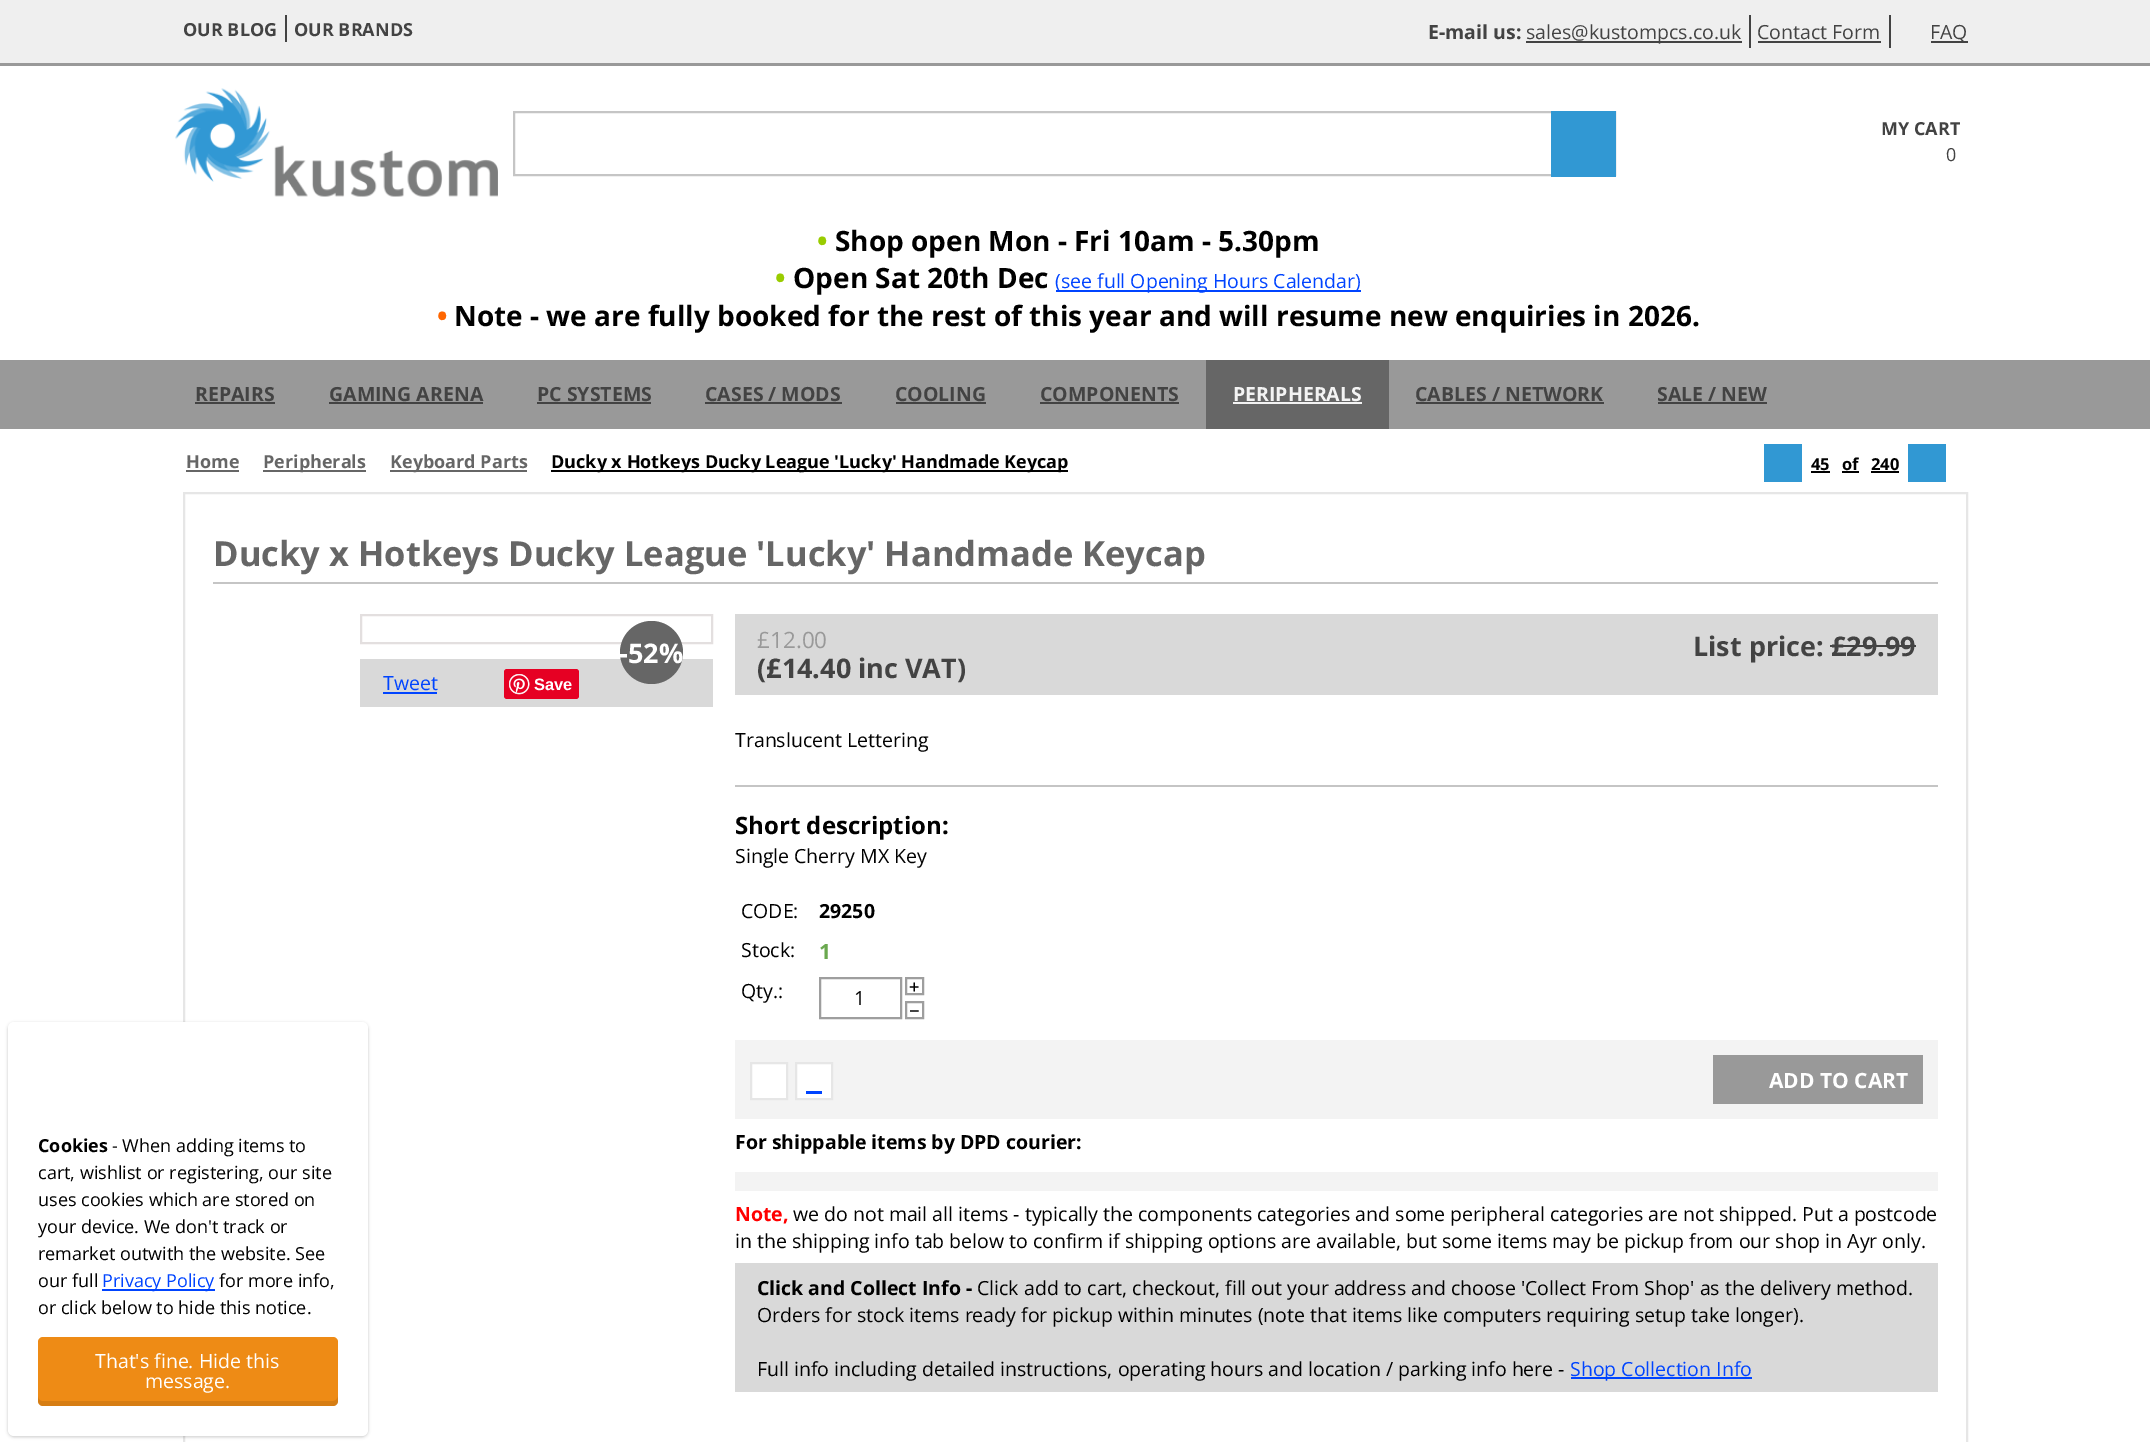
%!PS
<< /PageSize [2150 1442] /PageUsesTransparency true >> setpagedevice
/m/moveto load def
/l/rlineto load def
/c/rcurveto load def
/z/closepath load def
/f/fill load def
/s/stroke load def
/q/gsave load def
/Q_/grestore load def
/w/setlinewidth load def
/C { dup -16 bitshift 255 div exch dup -8 bitshift 255 and 255 div exch 255 and 255 div setrgbcolor } def
/F { [ exch dup neg 0 0 3 -1 roll 0 0 ] selectfont } def
/T { moveto show } def
/R { rectfill } def
/A { dup .setfillconstantalpha .setstrokeconstantalpha } def
/O { newpath 0 360 arc closepath } def
/Q { 5 dict begin { /r /h /w /y /x } { exch def } forall
  x r add y moveto x w add y 2 copy h add r arct x w add y h add x 1 index r arct
  x y h add x y r arct x y 2 copy exch w add exch r arct closepath end } def
/S { 12 dict begin { /a /b /q /h /w /y /x } { exch def } forall gsave /was 0 def
  9 -2 -9 { dup b mul 4 div /e exch def 1 sub .425 mul 2.718 exch exp 1 add a .99 .min exch div /now exch def
    1 1 now sub 1 was sub div sub A /was now def
    w h .min e 2 mul add 0 gt { x e sub y e sub w e 2 mul add h e 2 mul add
      q e add b .6 mul add w h .min 2 div e add .min 0 .max Q fill } if } for grestore end } def
/I { 5 dict begin { /h /w /y /x /name } { exch def } forall
  gsave x y translate w h scale
  w h 8 [w 0 0 h 0 0] name (r) file false 3 colorimage grestore end } def
0 .pushpdf14devicefilter
0 1442 translate 1 -1 scale
4 setmiterlimit
16#FFFFFF C
0 0 2150 1442 R
16#EFEFEF C
0 0 2150 63 R
16#999999 C
0 63 2150 3 R
/OpenSans-Bold 18 F
16#434343 C
(OUR BLOG) 183 36 T
285 15 2 27 R
(OUR BRANDS) 294 36 T
1749 15 2 33 R
/OpenSans-Bold 19.5 F
(E-mail us:) 1428 39 T
1526 41 216 2 R
/OpenSans-Regular 19.5 F
(sales@kustompcs.co.uk) 1526 39 T
1889 15 2 33 R
(Contact Form) 1757 39 T
1758 41 123 2 R
1931 41 37 2 R
(FAQ) 1930 39 T
(1.rgb) 175 88 323 109 I
16#C5C5C5 C
2 w
514 112 1101 63 rectstroke
16#3198D3 C
1551 111 65 66 R
/OpenSans-Bold 18 F
16#434343 C
(MY CART) 1881 135 T
/OpenSans-Regular 18 F
(0) 1946 161 T
/OpenSans-Bold 28 F
16#99CC00 C
(•) 817 251 T
16#000000 C
(Shop open Mon - Fri 10am - 5.30pm) 835 251 T
16#99CC00 C
(•) 775 288 T
16#000000 C
(Open Sat 20th Dec) 793 288 T
16#0044FF C
1056 290 305 2 R
/OpenSans-Regular 19.5 F
(\(see full Opening Hours Calendar\)) 1055 288 T
/OpenSans-Bold 28 F
16#FF6600 C
(•) 437 326 T
16#000000 C
(Note - we are fully booked for the rest of this year and will resume new enquiries in 2026.) 454 326 T
16#999999 C
0 360 2150 69 R
/OpenSans-Bold 19.5 F
16#434343 C
(REPAIRS) 195 401 T
195 402 80 2 R
(GAMING ARENA) 329 401 T
329 402 154 2 R
(PC SYSTEMS) 537 401 T
537 402 114 2 R
(CASES / MODS) 705 401 T
705 402 137 2 R
(COOLING) 895 401 T
896 402 90 2 R
(COMPONENTS) 1040 401 T
1040 402 139 2 R
16#666666 C
1206 360 183 69 R
16#F3F3F3 C
(PERIPHERALS) 1233 401 T
1233 402 129 2 R
16#434343 C
(CABLES / NETWORK) 1415 401 T
1416 402 188 2 R
(SALE / NEW) 1657 401 T
1658 402 109 2 R
/OpenSans-Bold 18 F
16#666666 C
(Home) 186 468 T
186 470 53 2 R
263 470 103 2 R
(Peripherals) 263 468 T
390 470 137 2 R
(Keyboard Parts) 390 468 T
16#000000 C
551 470 517 2 R
(Ducky x Hotkeys Ducky League 'Lucky' Handmade Keycap) 551 468 T
16#3198D3 C
1764 444 38 38 R
/OpenSans-Bold 16.5 F
16#000000 C
(45) 1811 470 T
1811 471 19 2 R
(of) 1842 470 T
1842 471 17 2 R
(240) 1871 470 T
1871 471 28 2 R
16#3198D3 C
1908 444 38 38 R
16#E6E6E6 C
184 493 1783 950 rectstroke
16#C5C5C5 C
213 582 1725 2 R
/OpenSans-Bold 34.5 F
16#666666 C
(Ducky x Hotkeys Ducky League 'Lucky' Handmade Keycap) 213 566 T
16#E3DFDF C
361 615 351 28 rectstroke
16#D9D9D9 C
360 659 353 48 R
16#666666 C
651.5 652.5 31.5 O f
/OpenSans-Bold 27 F
16#FFFFFF C
(-52%) 619 663 T
/OpenSans-Regular 19.5 F
16#0044FF C
(Tweet) 383 690 T
383 692 54 2 R
16#E60023 C
504 669 75 30 3 Q f
(2.rgb) 509 674 21 21 I
/LiberationSans-Bold 16.5 F
16#FFFFFF C
(Save) 534 690 T
16#D9D9D9 C
735 614 1203 81 R
/OpenSans-Regular 22.5 F
16#999999 C
(£12.00) 757 648 T
/OpenSans-Bold 27 F
16#434343 C
(\(£14.40 inc VAT\)) 757 678 T
(List price: £29.99) 1693 656 T
1830 645 86 2 R
16#C5C5C5 C
735 785 1203 2 R
/OpenSans-Regular 19.5 F
16#000000 C
(Translucent Lettering) 735 747 T
/OpenSans-Bold 24 F
(Short description:) 735 834 T
/OpenSans-Regular 19.5 F
(Single Cherry MX Key) 735 863 T
(CODE:) 741 918 T
/OpenSans-Bold 19.5 F
(29250) 819 918 T
/OpenSans-Regular 19.5 F
(Stock:) 741 957 T
/OpenSans-Bold 21 F
16#6AA84F C
(1) 819 959 T
/OpenSans-Regular 19.5 F
16#000000 C
(Qty.:) 741 998 T
16#9E9E9E C
906 978 17 16 rectstroke
/LiberationSans-Regular 18 F
16#000000 C
(+) 909 993 T
16#9E9E9E C
820 978 81 40 rectstroke
/OpenSans-Regular 19.5 F
16#000000 C
(1) 854 1005 T
16#9E9E9E C
906 1002 17 16 rectstroke
/LiberationSans-Regular 18 F
16#000000 C
(−) 909 1017 T
16#F3F3F3 C
735 1040 1203 79 R
16#FFFFFF C
751 1063 m 36 0 l 0 36 l -36 0 l z q f Q_
16#E6E6E6 C
s
16#FFFFFF C
796 1063 m 36 0 l 0 36 l -36 0 l z q f Q_
16#E6E6E6 C
s
16#0044FF C
806 1091 16 3 R
16#999999 C
1713 1055 210 49 R
/OpenSans-Bold 21 F
16#FFFFFF C
(ADD TO CART) 1769 1088 T
/OpenSans-Bold 19.5 F
16#000000 C
(For shippable items by DPD courier:) 735 1149 T
16#F3F3F3 C
735 1172 1203 19 R
16#FF0000 C
(Note,) 735 1221 T
/OpenSans-Regular 19.5 F
16#000000 C
(we do not mail all items - typically the components categories and some peripheral categories are not shipped. Put a postcode) 793 1221 T
(in the shipping info tab below to confirm if shipping options are available, but some items may be pickup from our shop in Ayr only.) 735 1248 T
16#D9D9D9 C
735 1263 1203 129 R
/OpenSans-Bold 19.5 F
16#000000 C
(Click and Collect Info -) 757 1295 T
/OpenSans-Regular 19.5 F
(Click add to cart, checkout, fill out your address and choose 'Collect From Shop' as the delivery method.) 977 1295 T
(Orders for stock items ready for pickup within minutes \(note that items like computers requiring setup take longer\).) 757 1322 T
(Full info including detailed instructions, operating hours and location / parking info here -) 757 1376 T
16#0044FF C
1571 1377 181 2 R
(Shop Collection Info) 1570 1376 T
16#000000 C
8 1023 360 414 6 1.5 .2 S
16#FFFFFF C
8 1022 360 414 6 Q f
/OpenSans-Bold 18 F
16#000000 C
(Cookies) 38 1152 T
/OpenSans-Regular 18 F
(- When adding items to) 112 1152 T
(cart, wishlist or registering, our site) 38 1179 T
(uses cookies which are stored on) 38 1206 T
(your device. We don't track or) 38 1233 T
(remarket outwith the website. See) 38 1260 T
(our full) 38 1287 T
16#0044FF C
102 1289 113 2 R
(Privacy Policy) 102 1287 T
16#000000 C
(for more info,) 219 1287 T
(or click below to hide this notice.) 38 1314 T
16#EE8B15 C
38 1337 300 69 5 Q f
0.1 A
16#000000 C
38 1396 m 0 5 l 0 3 2 5 5 5 c 290 0 l 3 0 5 -2 5 -5 c 0 -5 l 0 3 -3 5 -5 5 c -291 0 l -2 0 -4 -2 -4 -5 c z f
/OpenSans-Regular 19.5 F
1 A
16#FFFFFF C
(That's fine. Hide this) 95 1368 T
(message.) 145 1388 T
.poppdf14devicefilter showpage
